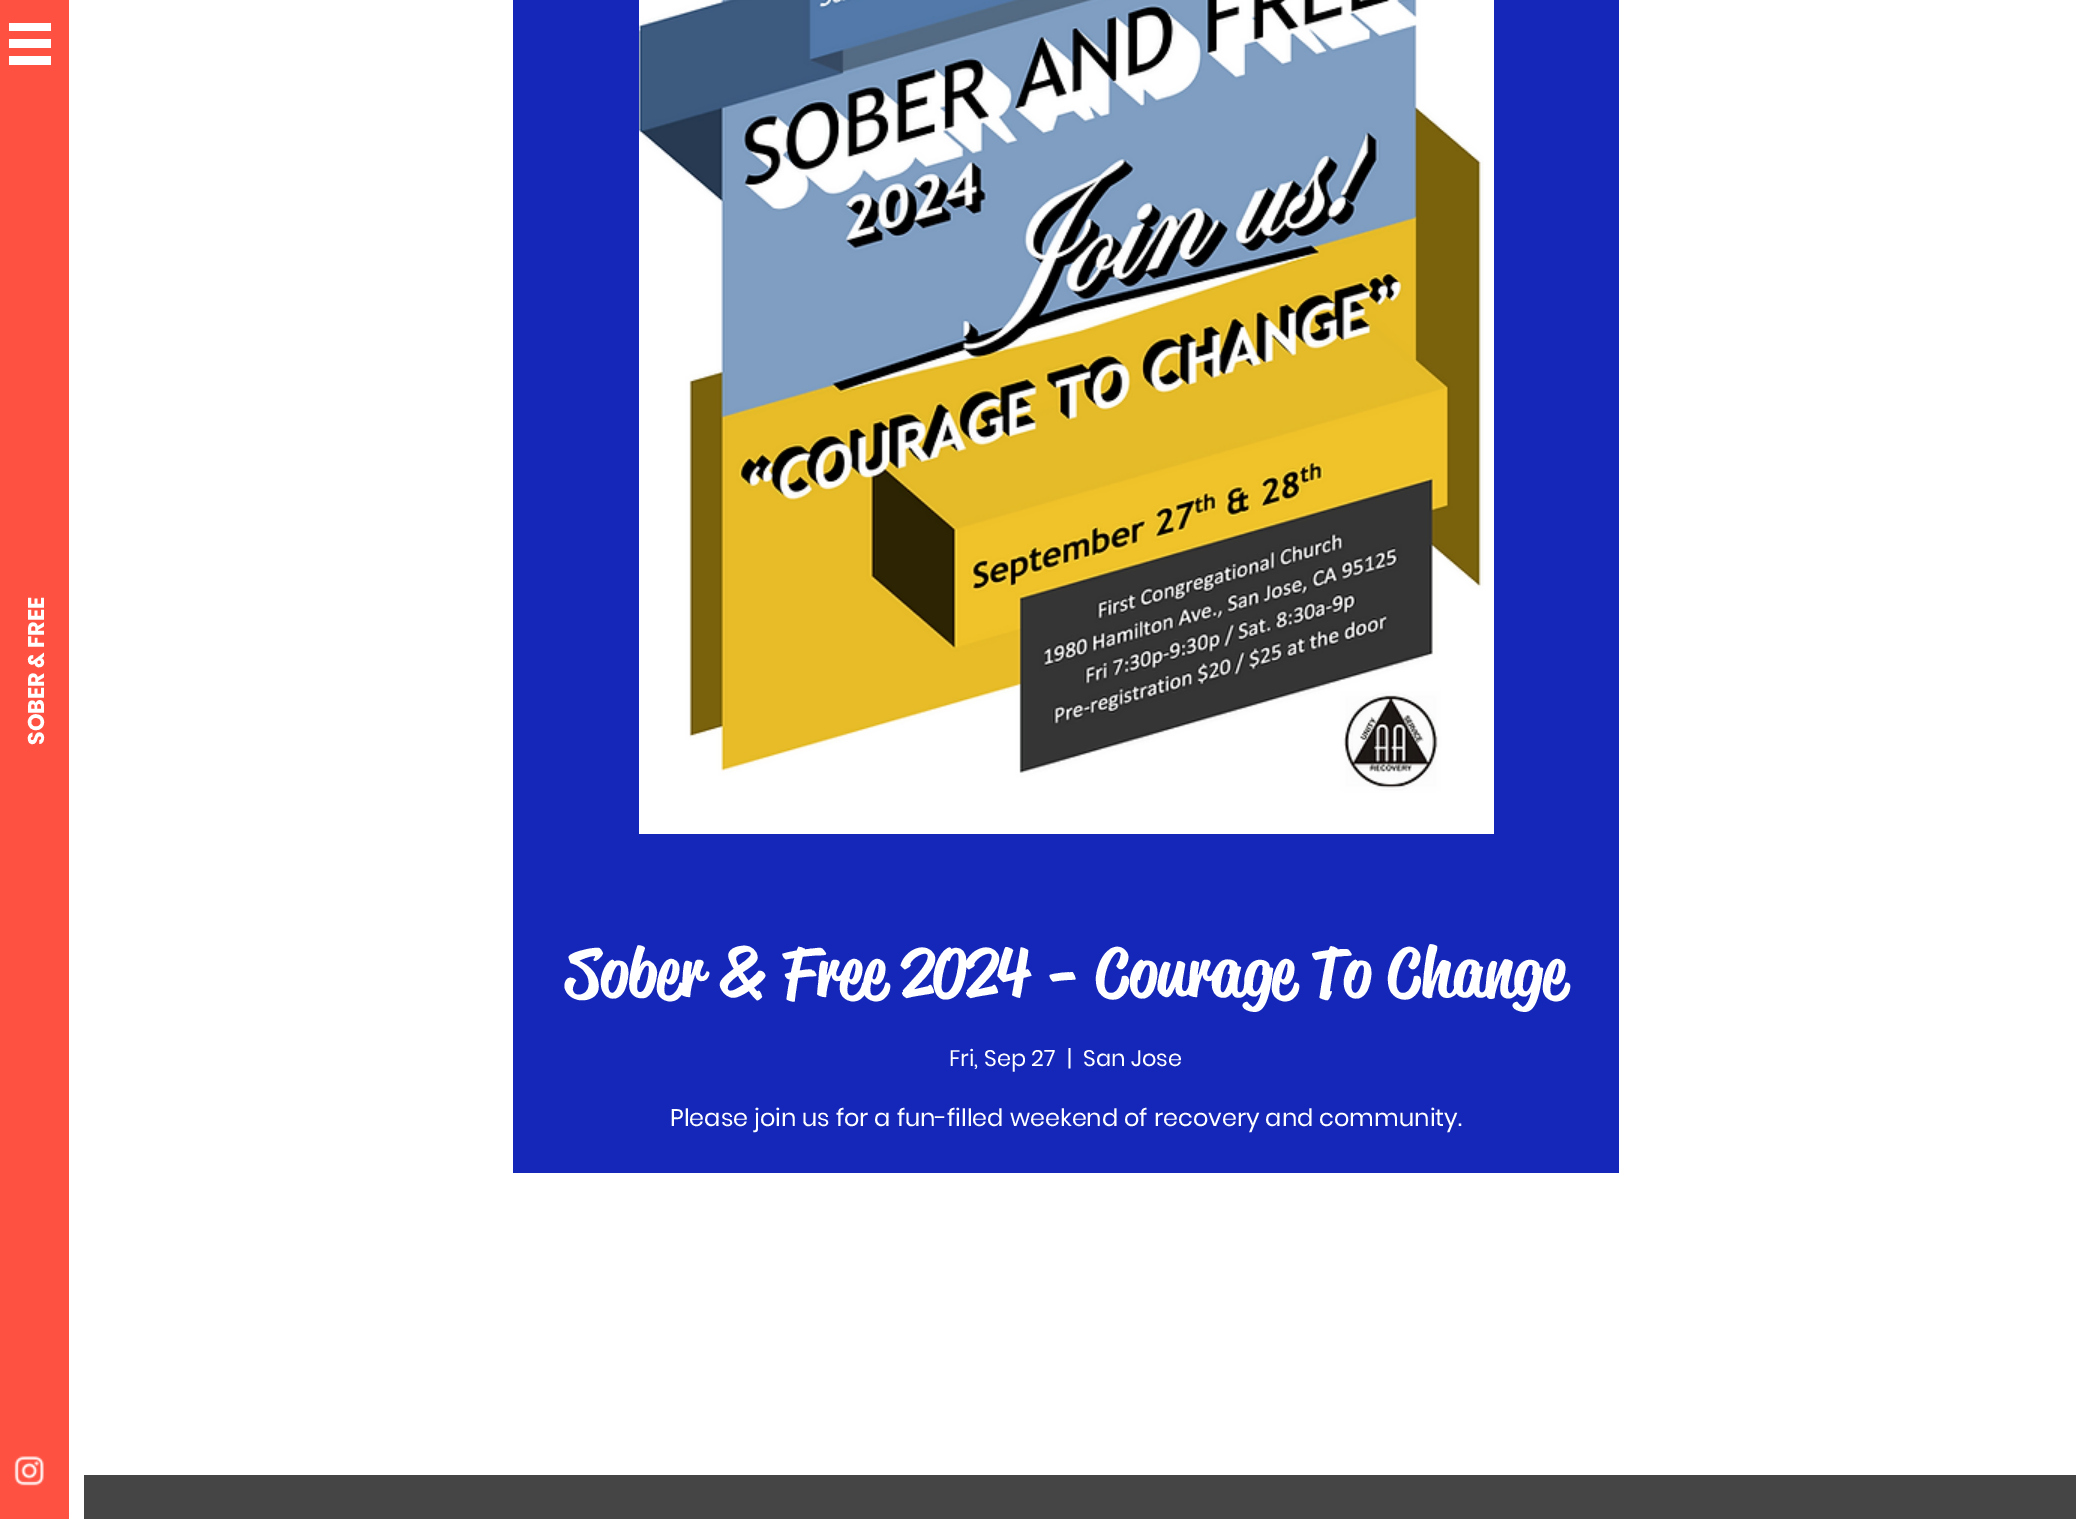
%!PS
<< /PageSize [2090 1519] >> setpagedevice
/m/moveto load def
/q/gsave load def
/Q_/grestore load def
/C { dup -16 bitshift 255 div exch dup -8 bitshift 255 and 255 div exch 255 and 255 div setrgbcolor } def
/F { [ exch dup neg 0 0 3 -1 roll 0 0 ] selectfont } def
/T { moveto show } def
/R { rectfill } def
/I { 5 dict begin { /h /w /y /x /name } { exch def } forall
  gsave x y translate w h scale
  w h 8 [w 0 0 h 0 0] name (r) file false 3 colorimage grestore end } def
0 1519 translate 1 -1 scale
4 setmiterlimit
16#FFFFFF C
0 0 2090 1519 R
16#FF5141 C
0 0 69 1519 R
16#FFFFFF C
9 23 42 8 R
9 39 42 9 R
9 56 42 9 R
/Poppins-Bold 22.5 F
q 44 745 translate -90 rotate 0 0 m (SOBER & FREE) show Q_
16#1427B8 C
513 0 1106 1173 R
(1.rgb) 639 0 855 834 I
/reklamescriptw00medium-Medium 69 F
16#FFFFFF C
(Sober & Free 2024 - Courage To Change) 566 996 T
/Poppins-Regular 22.5 F
(Fri, Sep 27) 949 1066 T
(|) 1067 1066 T
(San Jose) 1083 1066 T
/Poppins-Regular 24 F
(Please join us for a fun-filled weekend of recovery and community.) 670 1126 T
(2.rgb) 14 1456 30 30 I
16#454545 C
84 1475 1992 44 R
showpage
